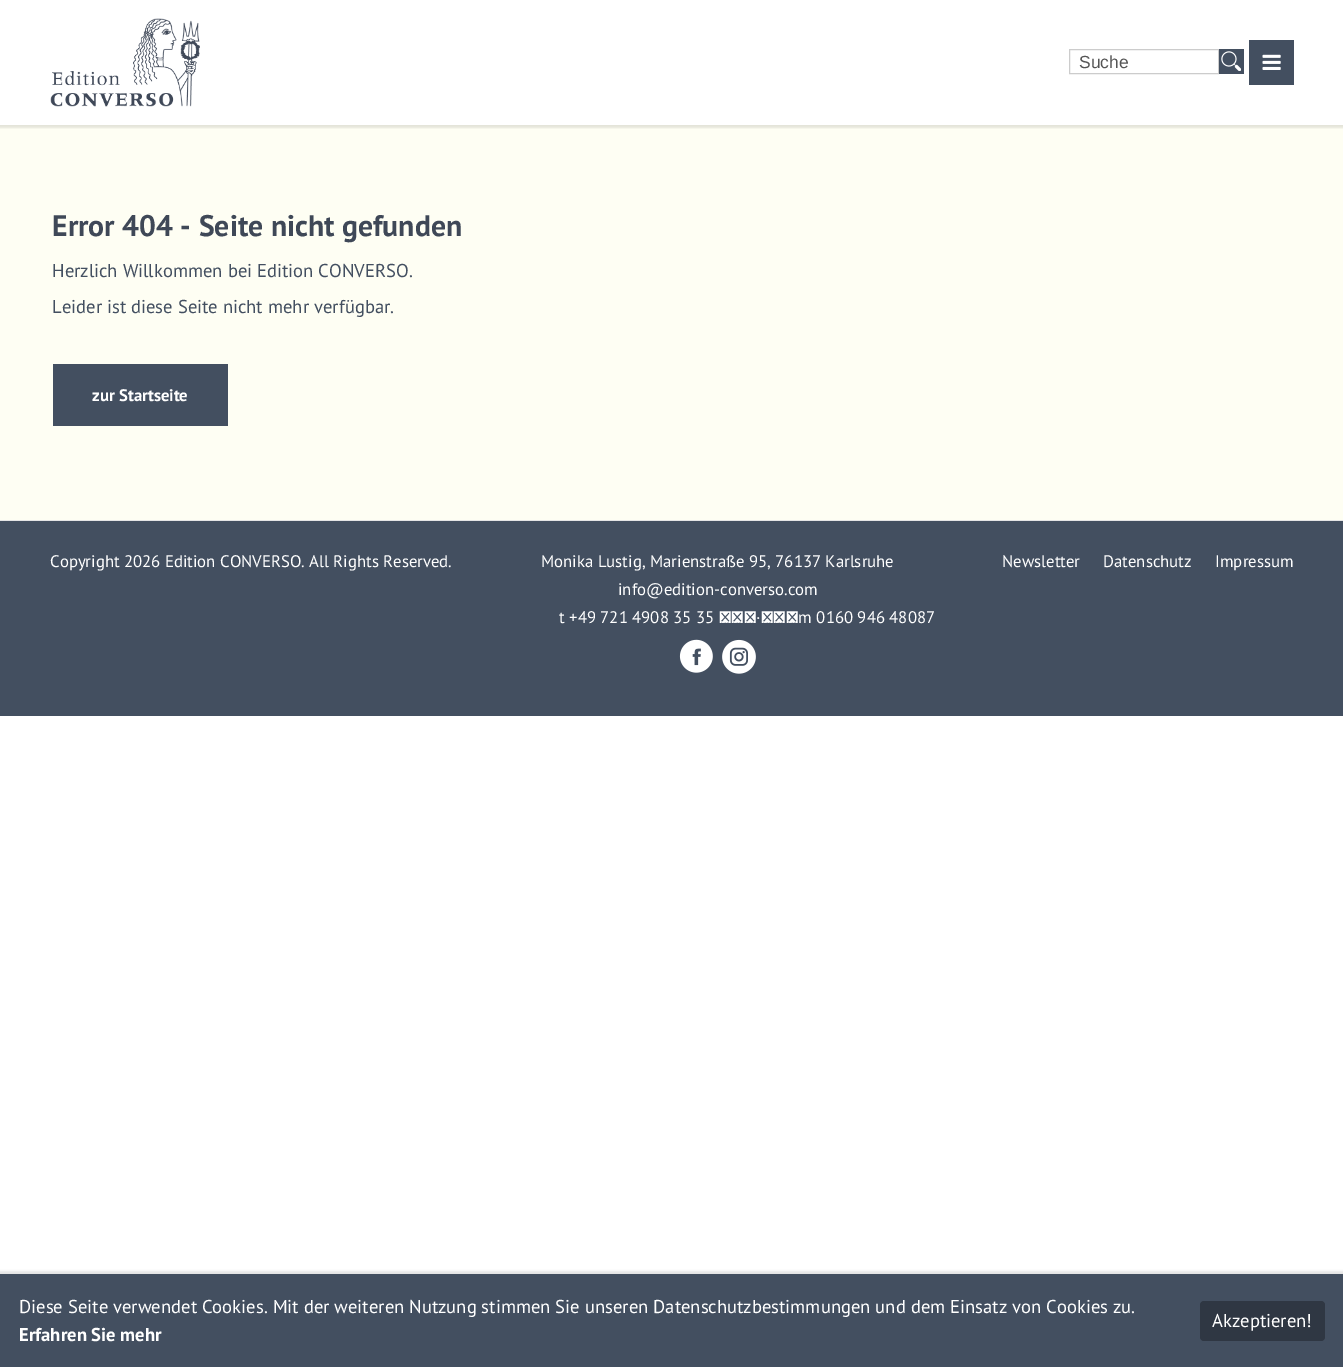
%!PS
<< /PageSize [1343 1367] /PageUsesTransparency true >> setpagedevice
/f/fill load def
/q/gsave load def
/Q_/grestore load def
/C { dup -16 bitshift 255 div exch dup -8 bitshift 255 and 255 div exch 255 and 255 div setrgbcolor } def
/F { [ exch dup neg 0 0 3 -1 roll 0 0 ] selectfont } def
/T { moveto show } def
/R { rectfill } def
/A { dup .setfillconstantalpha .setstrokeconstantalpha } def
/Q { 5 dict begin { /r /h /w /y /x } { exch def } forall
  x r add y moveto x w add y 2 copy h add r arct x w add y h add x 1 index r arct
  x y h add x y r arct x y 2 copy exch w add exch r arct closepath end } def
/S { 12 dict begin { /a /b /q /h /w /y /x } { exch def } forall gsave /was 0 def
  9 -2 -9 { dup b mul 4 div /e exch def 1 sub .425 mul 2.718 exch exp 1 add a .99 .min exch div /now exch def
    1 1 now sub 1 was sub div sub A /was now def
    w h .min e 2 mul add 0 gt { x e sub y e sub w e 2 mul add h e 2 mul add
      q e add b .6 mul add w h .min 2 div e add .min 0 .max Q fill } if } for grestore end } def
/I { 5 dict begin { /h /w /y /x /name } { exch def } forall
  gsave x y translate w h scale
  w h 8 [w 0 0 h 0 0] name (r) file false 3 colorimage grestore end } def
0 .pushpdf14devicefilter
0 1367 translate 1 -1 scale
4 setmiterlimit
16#FFFFFF C
0 0 1343 1367 R
16#FEFEF3 C
0 125 1343 395 R
q
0 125 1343 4 rectclip
16#000000 C
-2 -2 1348 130 0 1 .1 S
Q_
(1.rgb) 50 18 150 89 I
16#434F60 C
1249 40 45 45 R
(2.rgb) 1262 54 19 16 I
16#CCCCCC C
1069.5 49.5 149 24 rectstroke
/LiberationSans-Regular 17.5 F
16#555555 C
(Suche) 1079 68 T
16#434F60 C
1219 49 25 25 R
(3.rgb) 1221 51 20 20 I
/PTSans-Bold 29.75 F
16#3F4857 C
(Error 404 - Seite nicht gefunden) 52 236 T
/PTSans-Regular 18.62 F
16#434F60 C
(Herzlich Willkommen bei Edition CONVERSO.) 52 277 T
(Leider ist diese Seite nicht mehr verfügbar.) 52 313 T
53 364 175 62 R
/PTSans-Bold 16.75 F
16#FFFFFF C
(zur Startseite) 92 401 T
16#434F60 C
0 521 1343 195 R
16#E5E5E5 C
0 520 1343 1 R
/PTSans-Regular 16.75 F
16#FFFFFF C
(Copyright 2026 Edition CONVERSO. All Rights Reserved.) 50 567 T
(Monika Lustig, Marienstraße 95, 76137 Karlsruhe) 541 567 T
(info@edition-converso.com) 618 595 T
(t +49 721 4908 35 35  · m 0160 946 48087) 559 623 T
(4.rgb) 679 639 34 34 I
(5.rgb) 722 639 34 35 I
(Newsletter) 1002 567 T
(Datenschutz) 1103 567 T
(Impressum) 1215 567 T
16#000000 C
-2 1271 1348 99 0 1 .1 S
16#434F60 C
0 1274 1343 93 R
/PTSans-Regular 18.62 F
16#FFFFFF C
(Diese Seite verwendet Cookies. Mit der weiteren Nutzung stimmen Sie unseren Datenschutzbestimmungen und dem Einsatz von Cookies zu.) 19 1313 T
/PTSans-Bold 18.62 F
(Erfahren Sie mehr) 19 1341 T
16#2F3743 C
1200 1301 125 40 4 Q f
/PTSans-Regular 18.62 F
16#FFFFFF C
(Akzeptieren!) 1212 1327 T
.poppdf14devicefilter showpage
